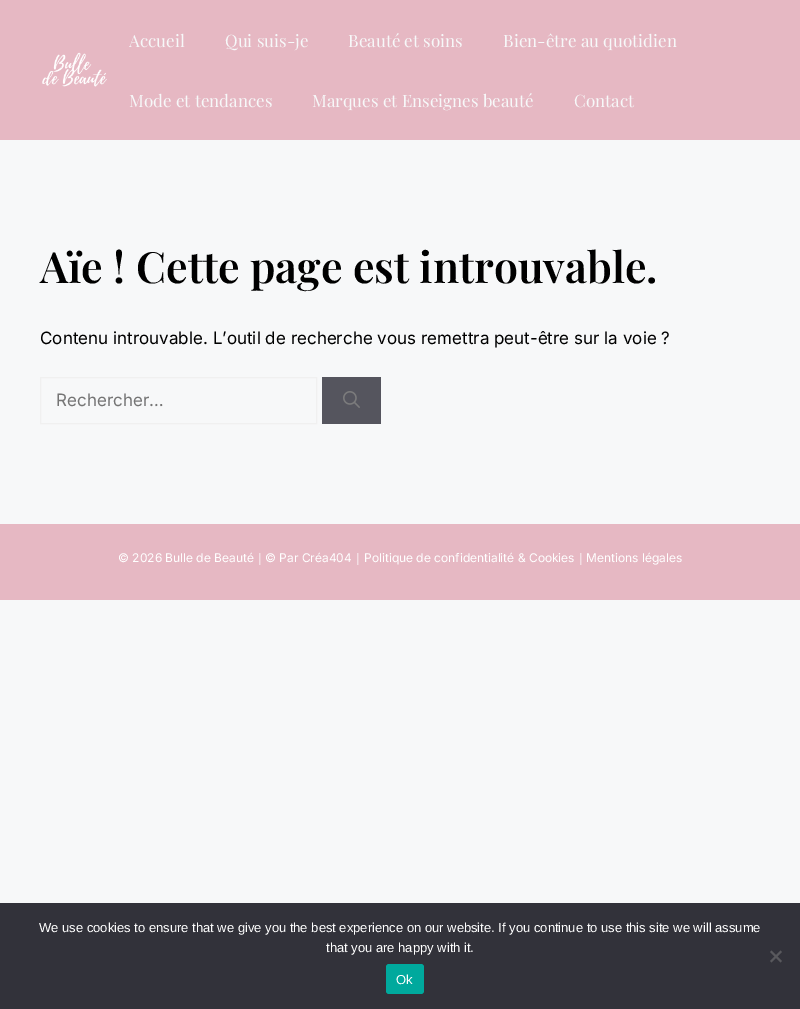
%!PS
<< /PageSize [800 1009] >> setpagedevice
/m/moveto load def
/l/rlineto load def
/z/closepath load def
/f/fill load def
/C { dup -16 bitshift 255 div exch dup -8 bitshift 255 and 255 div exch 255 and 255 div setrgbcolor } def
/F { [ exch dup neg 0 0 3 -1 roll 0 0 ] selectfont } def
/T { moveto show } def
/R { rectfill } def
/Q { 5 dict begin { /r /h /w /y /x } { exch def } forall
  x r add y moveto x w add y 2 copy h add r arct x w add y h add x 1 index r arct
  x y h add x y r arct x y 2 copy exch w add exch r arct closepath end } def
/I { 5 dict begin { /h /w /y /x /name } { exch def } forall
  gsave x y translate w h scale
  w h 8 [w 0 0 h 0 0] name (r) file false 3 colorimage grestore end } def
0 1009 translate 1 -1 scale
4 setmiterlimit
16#F7F8F9 C
0 0 800 1009 R
16#E6B8C3 C
0 0 800 140 R
(1.rgb) 42 52 65 35 I
/PlayfairDisplay-Regular 17 F
16#F7F8F9 C
(Accueil) 129 47 T
(Qui suis-je) 225 47 T
(Beauté et soins) 348 47 T
(Bien-être au quotidien) 503 47 T
(Mode et tendances) 129 107 T
(Marques et Enseignes beauté) 312 107 T
(Contact) 574 107 T
/PlayfairDisplay-SemiBold 43 F
16#000000 C
(Aïe ! Cette page est introuvable.) 40 283 T
/Inter-Regular 17 F
(Contenu introuvable. L’outil de recherche vous remettra peut-être sur la voie ?) 40 344 T
16#F0F0F0 C
40.5 377.5 276 46 rectstroke
16#757575 C
(Rechercher…) 56 406 T
16#55555E C
322 377 59 47 R
(2.rgb) 343 391 17 17 I
16#E6B8C3 C
0 524 800 76 R
/Inter-Regular 12 F
16#FFFFFF C
(© 2026 Bulle de Beauté) 118 562 T
/WenQuanYiZenHei-Medium 12 F
(｜) 254 562 T
/Inter-Regular 12 F
(© Par Créa404) 265 562 T
/WenQuanYiZenHei-Medium 12 F
(｜) 352 562 T
/Inter-Regular 12 F
(Politique de confidentialité & Cookies) 364 562 T
/WenQuanYiZenHei-Medium 12 F
(｜) 575 562 T
/Inter-Regular 12 F
(Mentions légales) 586 562 T
16#32323A C
0 903 800 106 R
/LiberationSans-Regular 13 F
16#FFFFFF C
(We use cookies to ensure that we give you the best experience on our website. If you continue to use this site we will assume) 39 932 T
(that you are happy with it.) 326 952 T
16#59595D C
780.5 950.5 m 1.5 1.5 l -10.5 10.5 l -1.5 -1.5 l z f
770 952 m 1.5 -1.5 l 10.5 10.5 l -1.5 1.5 l z f
16#00A99D C
386 964 38 30 3 Q f
16#FFFFFF C
(Ok) 396 984 T
showpage
